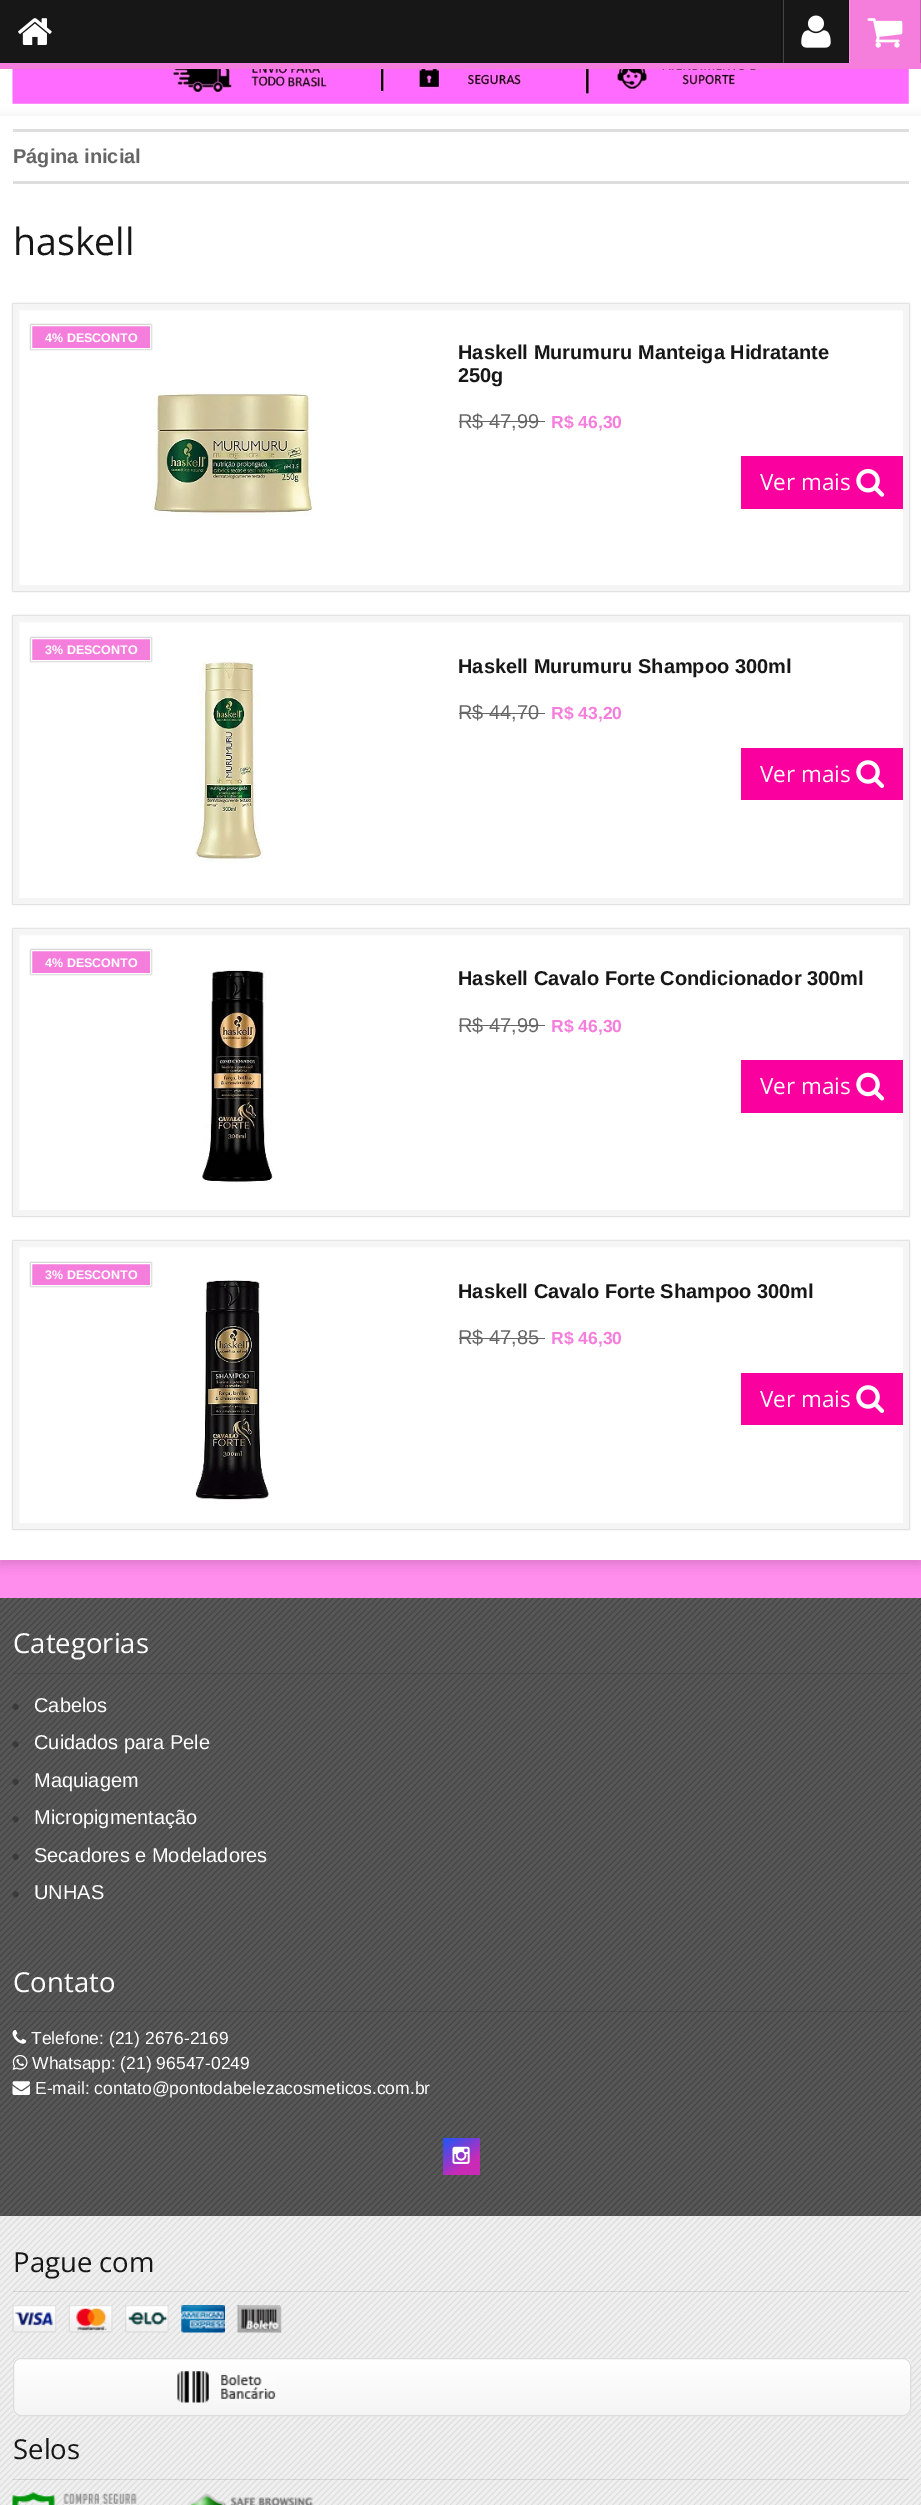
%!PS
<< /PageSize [921 2505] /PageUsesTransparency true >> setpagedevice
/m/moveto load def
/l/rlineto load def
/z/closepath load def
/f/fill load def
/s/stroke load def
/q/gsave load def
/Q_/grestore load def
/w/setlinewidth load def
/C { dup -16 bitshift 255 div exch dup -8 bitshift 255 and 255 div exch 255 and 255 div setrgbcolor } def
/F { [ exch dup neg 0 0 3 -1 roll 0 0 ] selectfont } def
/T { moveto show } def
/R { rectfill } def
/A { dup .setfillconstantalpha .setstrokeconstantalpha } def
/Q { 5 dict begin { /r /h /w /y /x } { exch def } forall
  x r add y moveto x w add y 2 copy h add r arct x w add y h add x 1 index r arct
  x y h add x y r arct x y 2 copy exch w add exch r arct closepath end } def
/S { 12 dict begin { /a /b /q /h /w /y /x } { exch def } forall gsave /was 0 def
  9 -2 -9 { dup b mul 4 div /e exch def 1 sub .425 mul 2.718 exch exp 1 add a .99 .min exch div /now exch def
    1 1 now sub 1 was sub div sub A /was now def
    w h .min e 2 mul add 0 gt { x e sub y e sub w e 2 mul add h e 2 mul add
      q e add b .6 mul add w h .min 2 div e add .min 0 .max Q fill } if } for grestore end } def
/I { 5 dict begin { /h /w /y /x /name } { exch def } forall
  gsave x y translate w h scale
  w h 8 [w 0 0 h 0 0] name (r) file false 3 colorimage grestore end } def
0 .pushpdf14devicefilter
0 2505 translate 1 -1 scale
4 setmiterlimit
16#FF8EED C
0 0 921 2505 R
16#171717 C
0 0 848 63 R
16#F57EDC C
0 63 921 6 R
(1.rgb) 18 18 34 27 I
16#121212 C
781 0 1 63 R
848 0 1 63 R
16#454545 C
783 0 1 63 R
(2.rgb) 801 15 30 33 I
16#F57EDC C
850 0 70 63 R
16#C465B0 C
920 0 1 63 R
16#F798E3 C
849 0 1 63 R
(3.rgb) 867 18 36 30 I
16#FFFFFF C
0 69 921 47 R
16#000000 C
0 120 921 1444 0 6 .15 S
(4.rgb) 12 69 897 35 I
16#FFFFFF C
0 116 921 1444 R
16#DEDEDE C
13 129 896 3 R
13 181 896 3 R
/LiberationSans-Bold 20 F
16#666666 C
(Página inicial) 13 163 T
/OpenSans-Regular 37.5 F
16#171717 C
(haskell) 13 255 T
q
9 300 m 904 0 l 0 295 l -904 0 l z 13 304 m 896 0 l 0 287 l -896 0 l z eoclip newpath
16#000000 C
13 304 896 287 0 1 .33 S
Q_
0.04 A
16#000000 C
6 w
16 307 890 281 rectstroke
1 A
31 325 120 24 0 1 .5 S
16#F57EDC C
31.5 325.5 m 119 0 l 0 23 l -119 0 l z q f Q_
16#FFFFFF C
1 w
s
/LiberationSans-Bold 12.5 F
(4% DESCONTO) 45 342 T
(5.rgb) 153 392 160 124 I
/LiberationSans-Bold 20 F
16#171717 C
(Haskell Murumuru Manteiga Hidratante) 458 359 T
(250g) 458 382 T
/LiberationSans-Regular 20 F
16#666666 C
(R$ 47,99) 458 428 T
459 421 86 1 R
/LiberationSans-Bold 17.5 F
16#F57EDC C
(R$ 46,30) 551 428 T
16#FA009E C
741 456 162 53 R
/OpenSans-Regular 22.5 F
16#FFFFFF C
(Ver mais) 760 490 T
(6.rgb) 856 468 29 29 I
q
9 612 m 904 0 l 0 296 l -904 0 l z 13 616 m 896 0 l 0 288 l -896 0 l z eoclip newpath
16#000000 C
13 616 896 288 0 1 .33 S
Q_
0.04 A
16#000000 C
6 w
16 619 890 282 rectstroke
1 A
31 638 120 23 0 1 .5 S
16#F57EDC C
31.5 638.5 m 119 0 l 0 22 l -119 0 l z q f Q_
16#FFFFFF C
1 w
s
/LiberationSans-Bold 12.5 F
(3% DESCONTO) 45 654 T
(7.rgb) 194 661 69 201 I
/LiberationSans-Bold 20 F
16#171717 C
(Haskell Murumuru Shampoo 300ml) 458 673 T
/LiberationSans-Regular 20 F
16#666666 C
(R$ 44,70) 458 719 T
459 713 86 1 R
/LiberationSans-Bold 17.5 F
16#F57EDC C
(R$ 43,20) 551 719 T
16#FA009E C
741 748 162 52 R
/OpenSans-Regular 22.5 F
16#FFFFFF C
(Ver mais) 760 782 T
(8.rgb) 856 760 29 28 I
q
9 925 m 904 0 l 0 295 l -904 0 l z 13 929 m 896 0 l 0 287 l -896 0 l z eoclip newpath
16#000000 C
13 929 896 287 0 1 .33 S
Q_
0.04 A
16#000000 C
6 w
16 932 890 281 rectstroke
1 A
31 950 120 24 0 1 .5 S
16#F57EDC C
31.5 950.5 m 119 0 l 0 23 l -119 0 l z q f Q_
16#FFFFFF C
1 w
s
/LiberationSans-Bold 12.5 F
(4% DESCONTO) 45 967 T
(9.rgb) 202 970 71 214 I
/LiberationSans-Bold 20 F
16#171717 C
(Haskell Cavalo Forte Condicionador 300ml) 458 985 T
/LiberationSans-Regular 20 F
16#666666 C
(R$ 47,99) 458 1032 T
459 1025 86 1 R
/LiberationSans-Bold 17.5 F
16#F57EDC C
(R$ 46,30) 551 1032 T
16#FA009E C
741 1060 162 53 R
/OpenSans-Regular 22.5 F
16#FFFFFF C
(Ver mais) 760 1094 T
(10.rgb) 856 1072 29 29 I
q
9 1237 m 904 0 l 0 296 l -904 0 l z 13 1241 m 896 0 l 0 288 l -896 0 l z eoclip newpath
16#000000 C
13 1241 896 288 0 1 .33 S
Q_
0.04 A
16#000000 C
6 w
16 1244 890 282 rectstroke
1 A
31 1263 120 23 0 1 .5 S
16#F57EDC C
31.5 1263.5 m 119 0 l 0 22 l -119 0 l z q f Q_
16#FFFFFF C
1 w
s
/LiberationSans-Bold 12.5 F
(3% DESCONTO) 45 1279 T
(11.rgb) 195 1280 74 220 I
/LiberationSans-Bold 20 F
16#171717 C
(Haskell Cavalo Forte Shampoo 300ml) 458 1298 T
/LiberationSans-Regular 20 F
16#666666 C
(R$ 47,85) 458 1344 T
459 1338 86 1 R
/LiberationSans-Bold 17.5 F
16#F57EDC C
(R$ 46,30) 551 1344 T
16#FA009E C
741 1373 162 52 R
/OpenSans-Regular 22.5 F
16#FFFFFF C
(Ver mais) 760 1407 T
(8.rgb) 856 1385 29 28 I
16#444444 C
0 1598 921 618 R
(12.rgb) 0 1597 921 619 I
0.1 A
16#000000 C
13 1673 896 1 R
/OpenSans-Regular 27.5 F
1 A
16#FFFFFF C
(Categorias) 13 1653 T
(13.rgb) 12 1703 8 7 I
/LiberationSans-Regular 20 F
(Cabelos) 34 1712 T
(14.rgb) 12 1741 8 7 I
(Cuidados para Pele) 34 1749 T
(13.rgb) 12 1778 8 7 I
(Maquiagem) 34 1787 T
(14.rgb) 12 1816 8 7 I
(Micropigmentação) 34 1824 T
(13.rgb) 12 1853 8 7 I
(Secadores e Modeladores) 34 1862 T
(14.rgb) 12 1891 8 7 I
(UNHAS) 34 1899 T
0.1 A
16#000000 C
13 2011 896 1 R
/OpenSans-Regular 27.5 F
1 A
16#FFFFFF C
(Contato) 13 1992 T
(15.rgb) 12 2030 15 14 I
/LiberationSans-Regular 17.5 F
(Telefone: \(21\) 2676-2169) 31 2044 T
(16.rgb) 12 2054 16 16 I
(Whatsapp: \(21\) 96547-0249) 32 2069 T
(17.rgb) 12 2081 18 14 I
(E-mail: contato@pontodabelezacosmeticos.com.br) 35 2094 T
q 443 2138 m 37 0 l 0 37 l -37 0 l z clip newpath
<< /ShadingType 2 /ColorSpace /DeviceRGB /Coords [446 2135 476 2178] /Extend [true true] /Function << /FunctionType 3 /Domain [0 1] /Functions [<< /FunctionType 2 /Domain [0 1] /C0 [.188 .318 .945] /C1 [.188 .318 .945] /N 1 >> << /FunctionType 2 /Domain [0 1] /C0 [.188 .318 .945] /C1 [.788 .169 .718] /N 1 >> << /FunctionType 2 /Domain [0 1] /C0 [.788 .169 .718] /C1 [.788 .169 .718] /N 1 >>] /Bounds [.1 .7] /Encode [0 1 0 1 0 1] >> >> shfill Q_
(18.rgb) 452 2146 18 18 I
16#EEEEEE C
0 2216 921 289 R
(19.rgb) 0 2216 921 289 I
0.1 A
16#000000 C
13 2291 896 1 R
/OpenSans-Regular 27.5 F
1 A
16#171717 C
(Pague com) 13 2272 T
(20.rgb) 12 2305 45 28 I
(21.rgb) 68 2305 45 28 I
(22.rgb) 125 2305 44 28 I
(23.rgb) 181 2305 44 28 I
(24.rgb) 237 2305 45 28 I
q
13 2358 898 58 8 Q clip newpath
q 13 2359 m 898 0 l 0 56 l -898 0 l z clip newpath
<< /ShadingType 2 /ColorSpace /DeviceRGB /Coords [462 2359 462 2415] /Extend [true true] /Function << /FunctionType 2 /Domain [0 1] /C0 [1 1 1] /C1 [.961 .961 .961] /N 1 >> >> shfill Q_
Q_
16#DDDDDD C
13.5 2358.5 897 57 7.5 Q s
(25.rgb) 177 2371 99 32 I
0.1 A
16#000000 C
13 2479 896 1 R
1 A
16#171717 C
(Selos) 13 2459 T
(26.rgb) 12 2492 125 13 I
(27.rgb) 188 2493 125 12 I
.poppdf14devicefilter showpage
